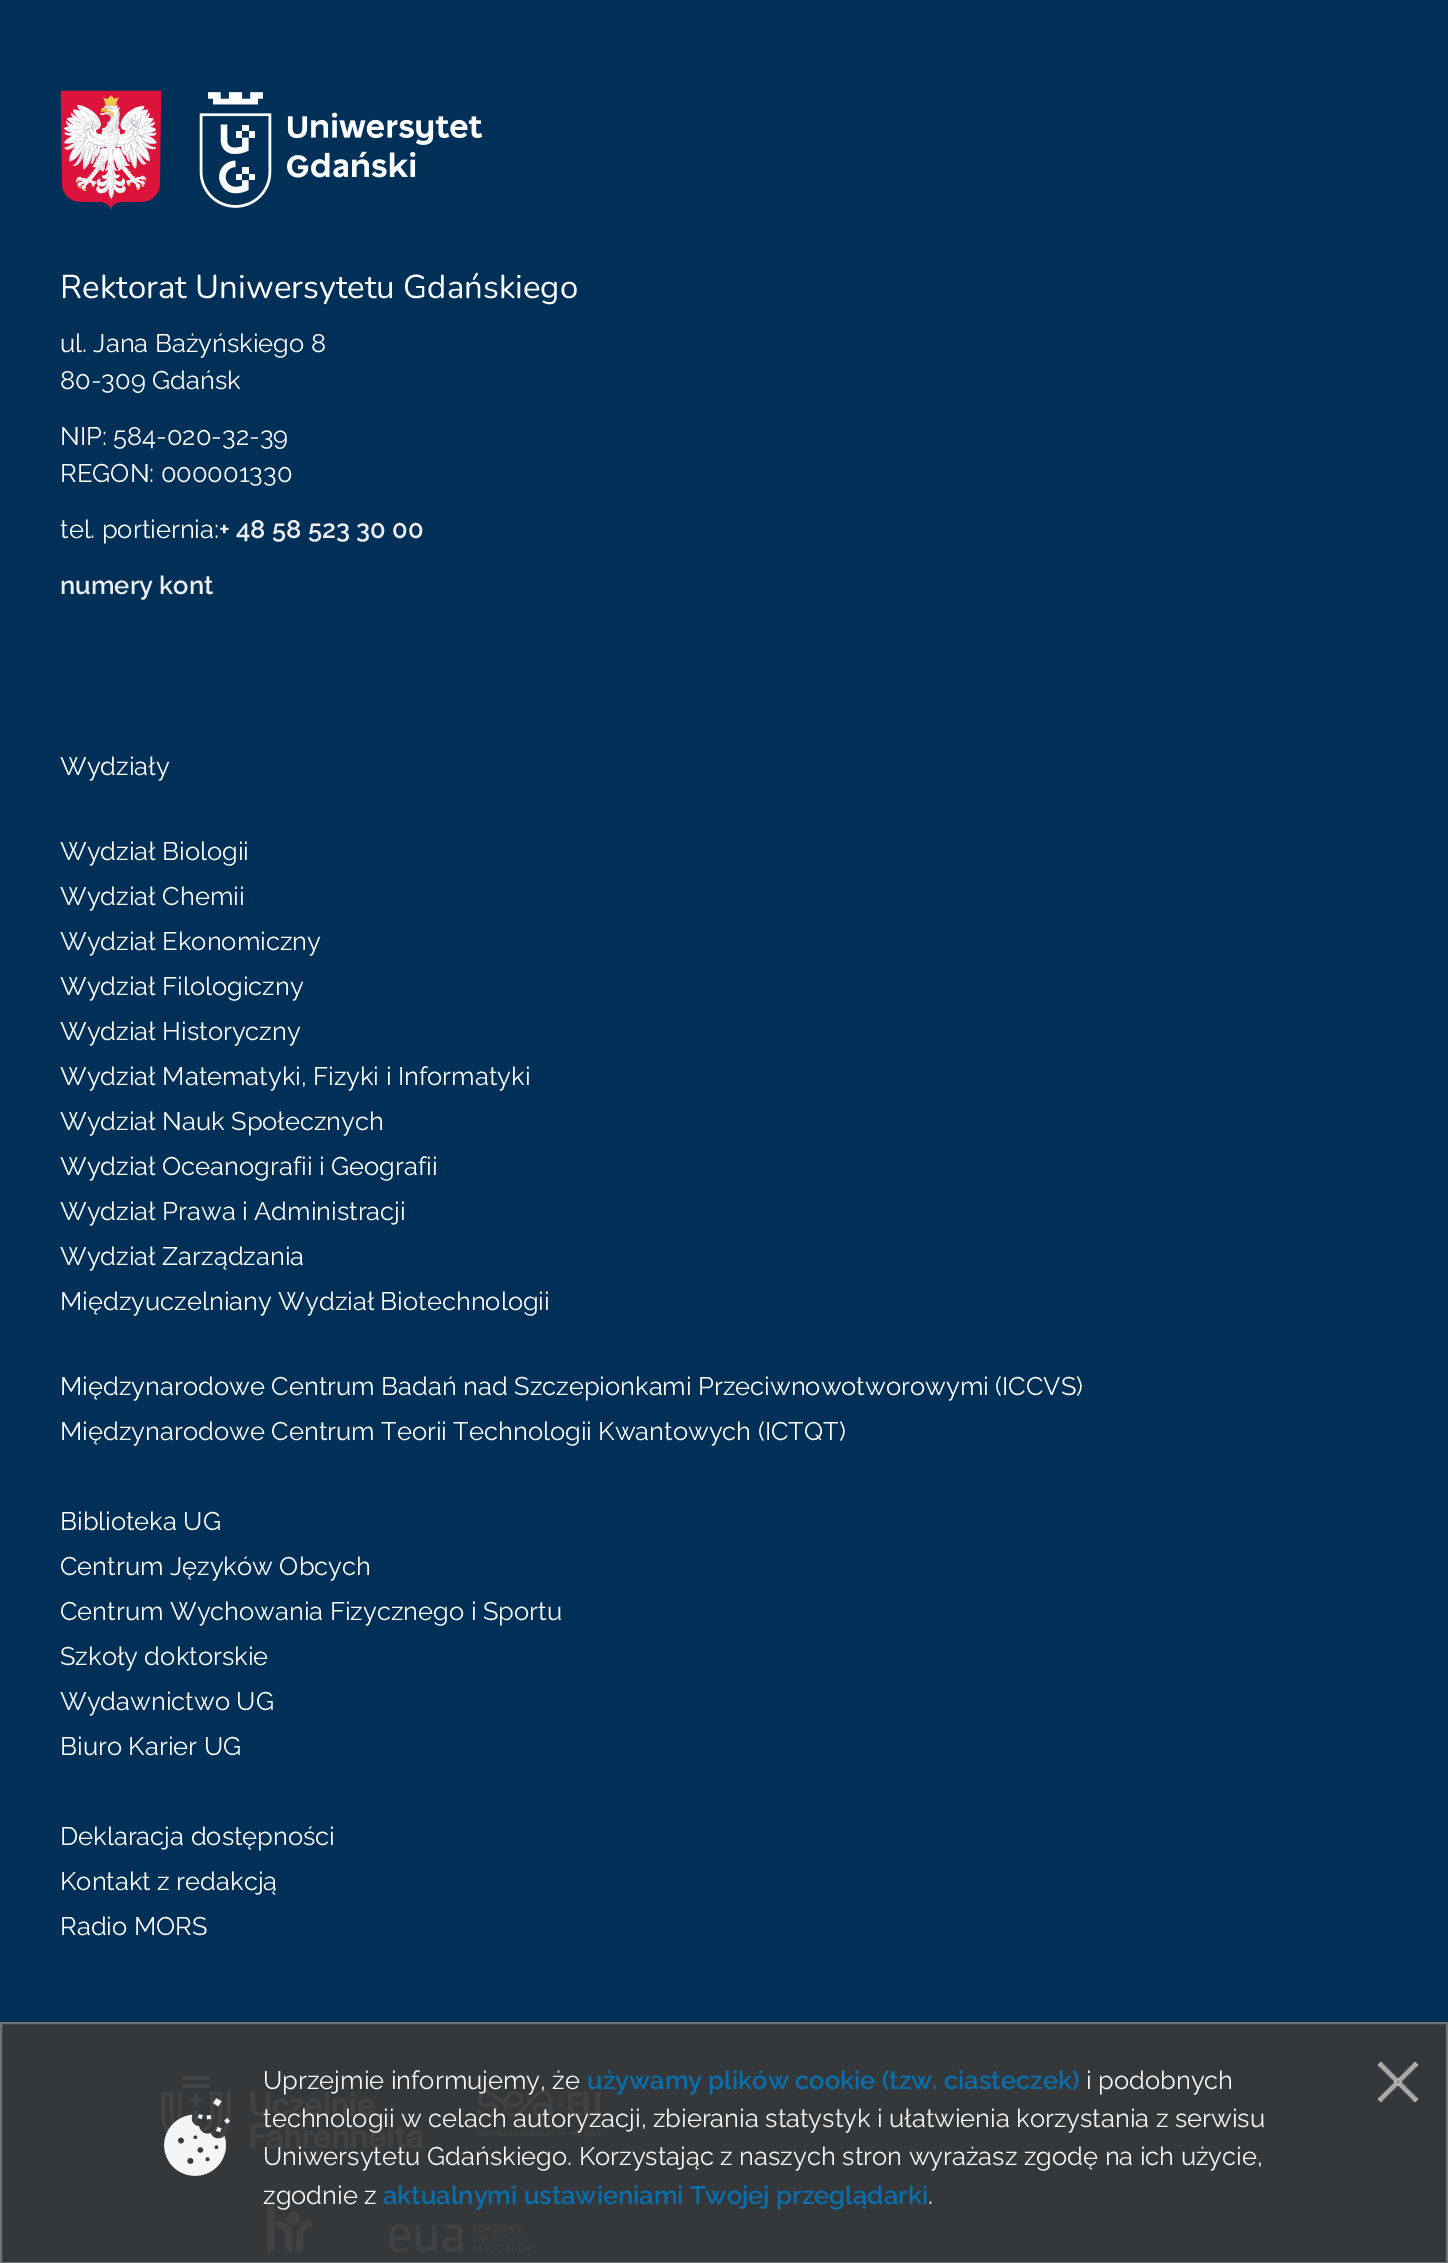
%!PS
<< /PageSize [1448 2263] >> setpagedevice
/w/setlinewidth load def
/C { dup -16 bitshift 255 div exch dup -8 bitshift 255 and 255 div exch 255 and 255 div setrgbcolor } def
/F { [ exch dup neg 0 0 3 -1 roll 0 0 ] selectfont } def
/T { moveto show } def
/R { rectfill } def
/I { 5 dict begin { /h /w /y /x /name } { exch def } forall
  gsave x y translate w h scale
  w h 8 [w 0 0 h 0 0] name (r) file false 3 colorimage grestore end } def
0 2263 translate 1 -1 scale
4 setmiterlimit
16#003057 C
0 0 1448 2263 R
16#35383A C
2 2024 1444 238 R
(1.rgb) 60 90 102 120 I
(2.rgb) 199 92 284 116 I
/Nunito-Regular 33 F
16#FFFFFF C
(Rektorat Uniwersytetu Gdańskiego) 60 298 T
/Raleway-Regular 25.5 F
(ul. Jana Bażyńskiego 8) 60 352 T
(80-309 Gdańsk) 60 389 T
(NIP: 584-020-32-39) 60 445 T
(REGON: 000001330) 60 482 T
(tel. portiernia:) 60 538 T
/Raleway-SemiBold 25.5 F
16#EEEEEE C
(+ 48 58 523 30 00) 219 538 T
(numery kont) 60 594 T
/Raleway-Regular 25.5 F
16#FFFFFF C
(Wydziały) 60 775 T
(Wydział Biologii) 60 860 T
(Wydział Chemii) 60 905 T
(Wydział Ekonomiczny) 60 950 T
(Wydział Filologiczny) 60 995 T
(Wydział Historyczny) 60 1040 T
(Wydział Matematyki, Fizyki i Informatyki) 60 1085 T
(Wydział Nauk Społecznych) 60 1130 T
(Wydział Oceanografii i Geografii) 60 1175 T
(Wydział Prawa i Administracji) 60 1220 T
(Wydział Zarządzania) 60 1265 T
(Międzyuczelniany Wydział Biotechnologii) 60 1310 T
(Międzynarodowe Centrum Badań nad Szczepionkami Przeciwnowotworowymi \(ICCVS\)) 60 1395 T
(Międzynarodowe Centrum Teorii Technologii Kwantowych \(ICTQT\)) 60 1440 T
(Biblioteka UG) 60 1530 T
(Centrum Języków Obcych) 60 1575 T
(Centrum Wychowania Fizycznego i Sportu) 60 1620 T
(Szkoły doktorskie) 60 1665 T
(Wydawnictwo UG) 60 1710 T
(Biuro Karier UG) 60 1755 T
(Deklaracja dostępności) 60 1845 T
(Kontakt z redakcją) 60 1890 T
(Radio MORS) 60 1935 T
(3.rgb) 161 2076 262 74 I
(4.rgb) 475 2090 126 47 I
(5.rgb) 266 2200 46 54 I
(6.rgb) 389 2224 142 28 I
16#6F7274 C
2 w
1 2023 1446 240 rectstroke
(7.rgb) 164 2098 66 78 I
16#F5F5F5 C
(Uprzejmie informujemy, że) 263 2089 T
/Raleway-SemiBold 25.5 F
16#0A6FAC C
(używamy plików cookie \(tzw. ciasteczek\)) 587 2089 T
/Raleway-Regular 25.5 F
16#F5F5F5 C
(i podobnych) 1086 2089 T
(technologii w celach autoryzacji, zbierania statystyk i ułatwienia korzystania z serwisu) 263 2127 T
(Uniwersytetu Gdańskiego. Korzystając z naszych stron wyrażasz zgodę na ich użycie,) 263 2165 T
(zgodnie z) 263 2204 T
/Raleway-SemiBold 25.5 F
16#0A6FAC C
(aktualnymi ustawieniami Twojej przeglądarki) 383 2204 T
/Raleway-Regular 25.5 F
16#F5F5F5 C
(.) 928 2204 T
(8.rgb) 1378 2062 40 40 I
showpage
